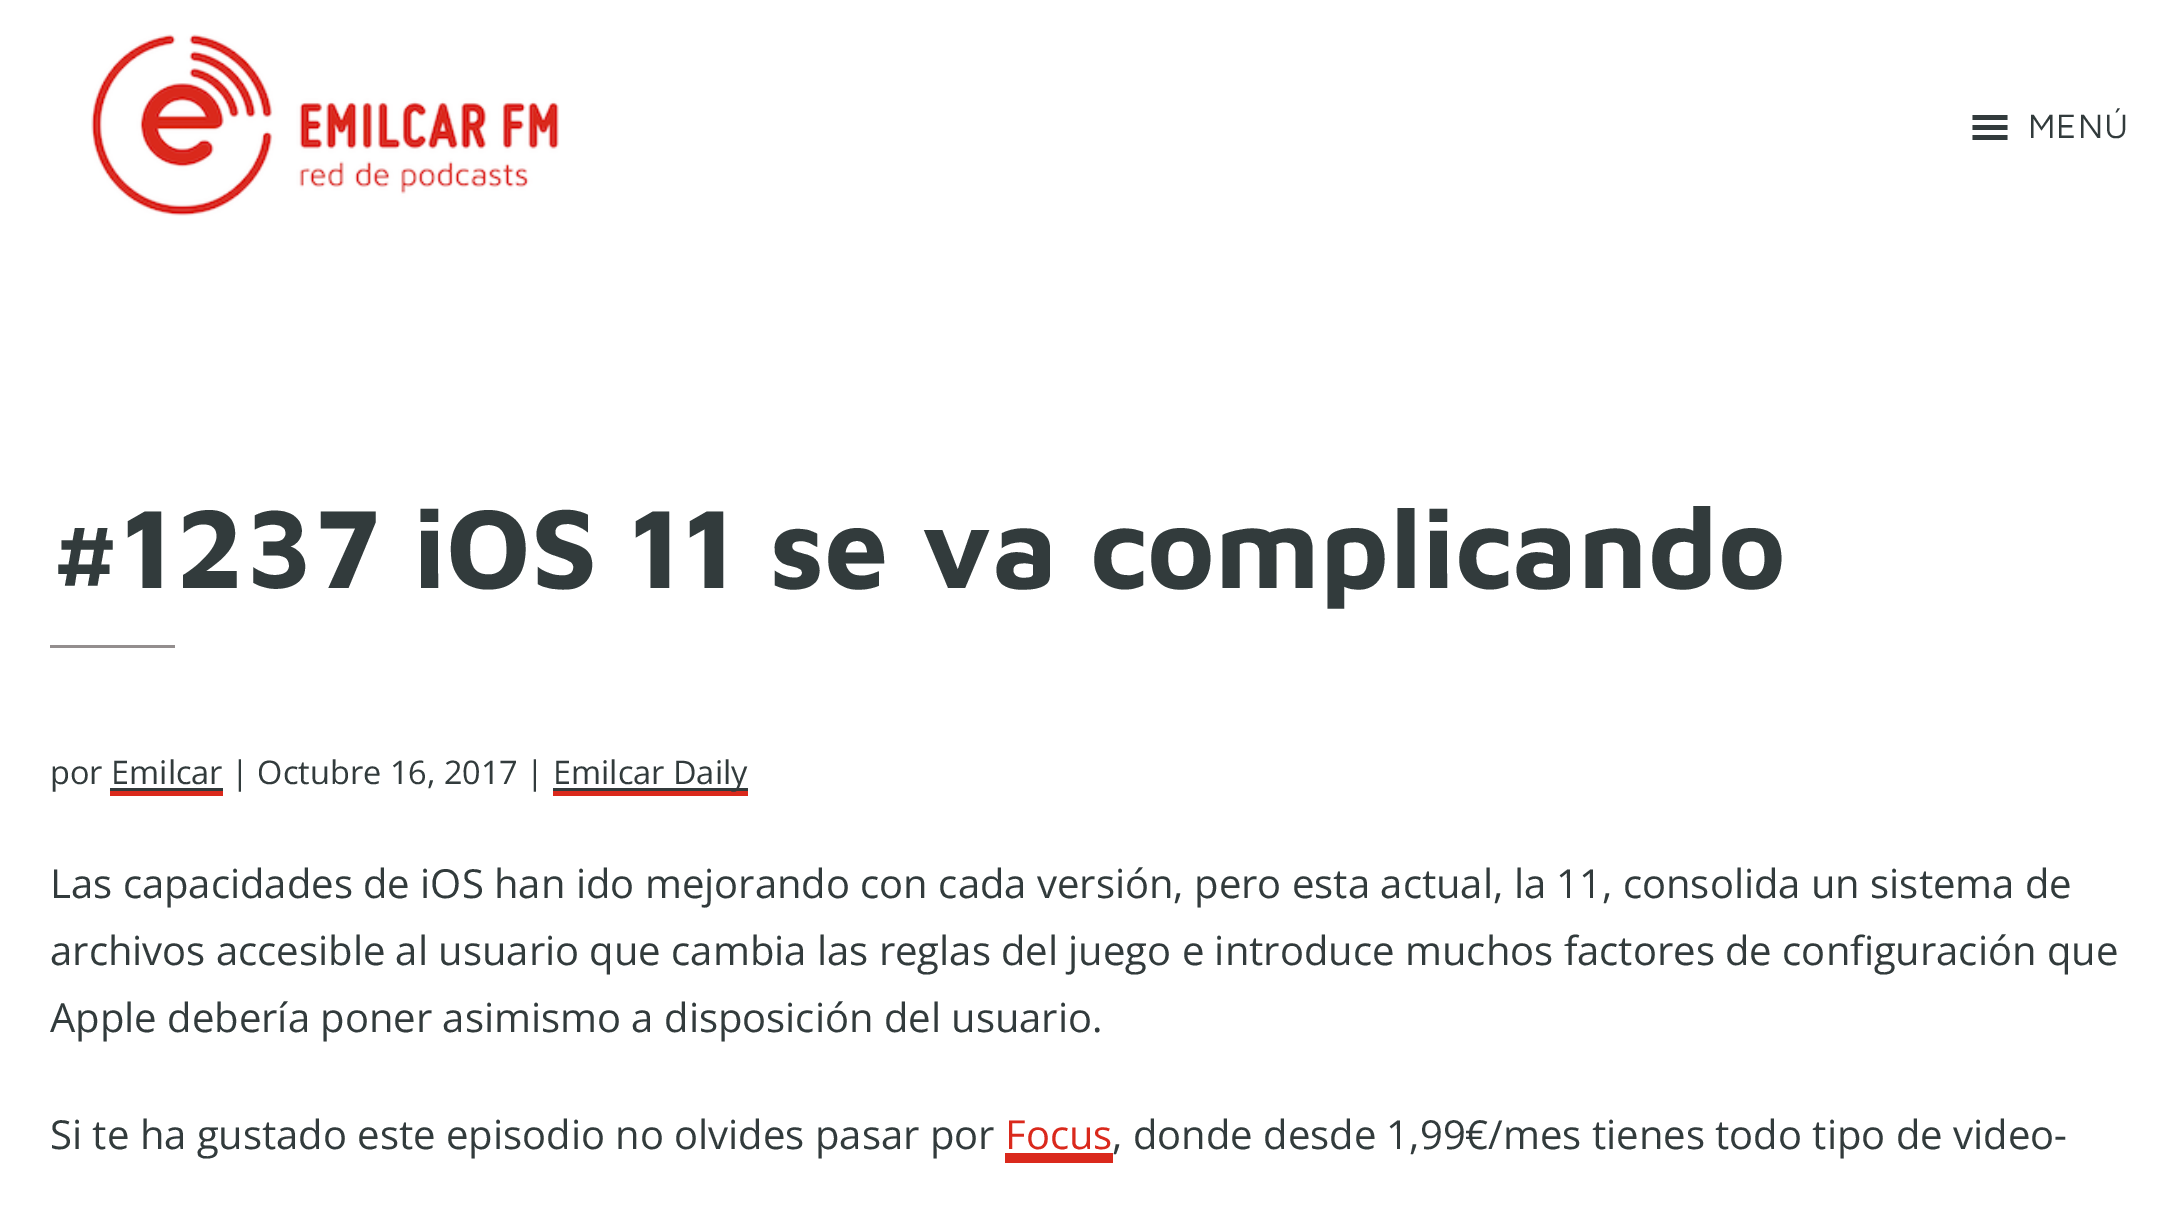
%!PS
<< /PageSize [2178 1206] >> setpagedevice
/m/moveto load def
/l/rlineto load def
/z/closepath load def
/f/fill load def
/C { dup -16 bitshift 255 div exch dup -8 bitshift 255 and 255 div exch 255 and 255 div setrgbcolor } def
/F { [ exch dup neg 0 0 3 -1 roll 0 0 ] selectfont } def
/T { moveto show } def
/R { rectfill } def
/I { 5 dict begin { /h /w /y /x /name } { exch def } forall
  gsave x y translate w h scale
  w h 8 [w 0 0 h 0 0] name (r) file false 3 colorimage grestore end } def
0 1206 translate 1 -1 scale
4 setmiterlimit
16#FFFFFF C
0 0 2178 1206 R
(1.rgb) 91 34 468 182 I
16#323B3C C
1972.5 140 m 35 0 l 0 -5 l -35 0 l z 1972.5 115 m 0 5 l 35 0 l 0 -5 l z 1972.5 130 m 35 0 l 0 -5 l -35 0 l z f
/MavenPro-Regular 35 F
2028 138 m 1 0 (MENÚ) ashow
/MavenPro-Bold 115 F
(#1237 iOS 11 se va complicando) 50 588 T
16#938E8E C
50 645 125 3 R
/OpenSans-Regular 32.5 F
16#323B3C C
(por Emilcar | Octubre 16, 2017 |) 50 784 T
16#DA291C C
553 791 195 5 R
16#323B3C C
553 788 195 3 R
(Emilcar Daily) 553 784 T
110 788 113 3 R
16#DA291C C
110 791 113 5 R
/OpenSans-Regular 40 F
16#323B3C C
(Las capacidades de iOS han ido mejorando con cada versión, pero esta actual, la 11, consolida un sistema de) 50 898 T
(archivos accesible al usuario que cambia las reglas del juego e introduce muchos factores de configuración que) 50 965 T
(Apple debería poner asimismo a disposición del usuario.) 50 1032 T
(Si te ha gustado este episodio no olvides pasar por) 50 1149 T
16#DA291C C
(Focus) 1005 1149 T
1005 1153 108 10 R
16#323B3C C
(, donde desde 1,99€/mes tienes todo tipo de video-) 1112 1149 T
showpage
